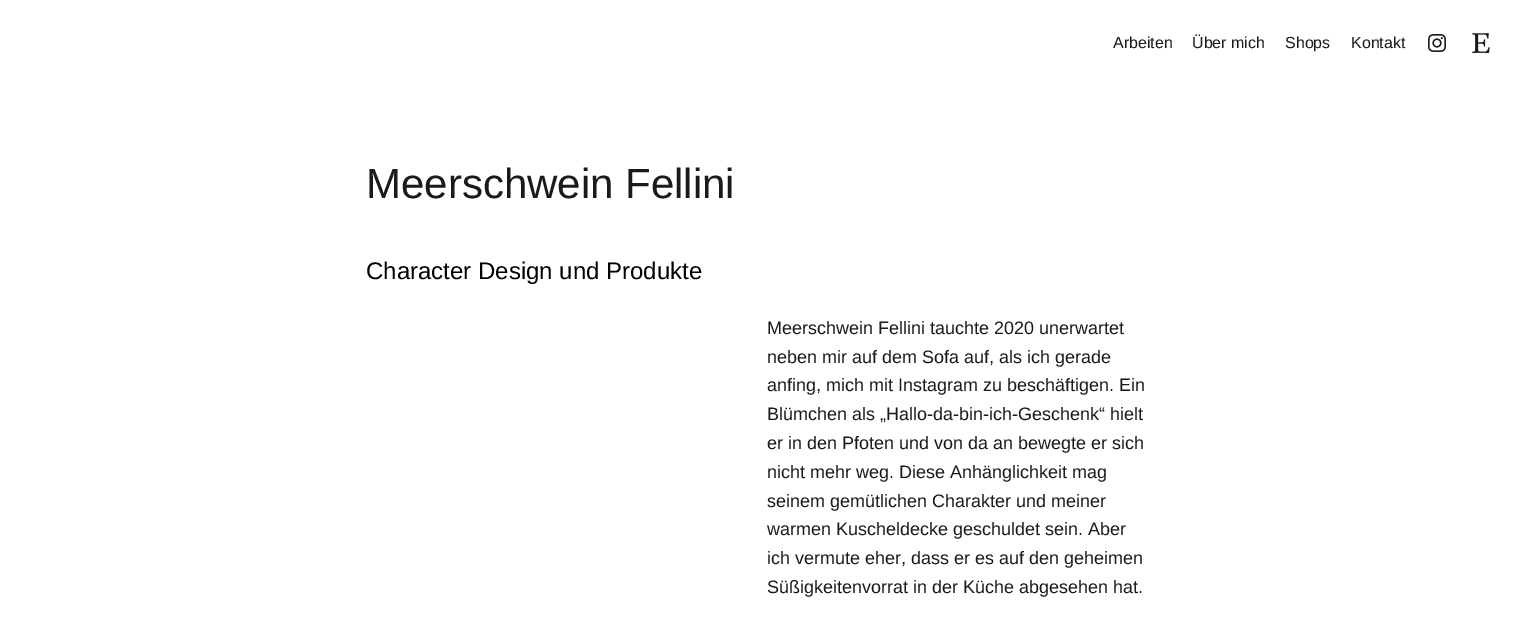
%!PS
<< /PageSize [1513 627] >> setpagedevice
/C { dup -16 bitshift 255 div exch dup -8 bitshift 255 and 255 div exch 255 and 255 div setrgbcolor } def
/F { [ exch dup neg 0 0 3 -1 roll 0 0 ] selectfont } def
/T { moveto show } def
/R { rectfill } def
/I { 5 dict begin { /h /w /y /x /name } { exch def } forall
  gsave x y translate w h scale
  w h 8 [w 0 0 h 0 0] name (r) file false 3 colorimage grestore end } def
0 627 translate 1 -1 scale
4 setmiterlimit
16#FFFFFF C
0 0 1513 627 R
/LiberationSans-Regular 16 F
16#1A1A1A C
(Arbeiten) 1113 48 T
(Über mich) 1192 48 T
(Shops) 1285 48 T
(Kontakt) 1351 48 T
(1.rgb) 1428 34 18 18 I
(2.rgb) 1472 33 18 20 I
/LiberationSans-Regular 42 F
(Meerschwein Fellini) 366 198 T
/LiberationSans-Regular 24 F
16#000000 C
(Character Design und Produkte) 366 279 T
/LiberationSans-Regular 18 F
16#1A1A1A C
(Meerschwein Fellini tauchte 2020 unerwartet) 767 334 T
(neben mir auf dem Sofa auf, als ich gerade) 767 363 T
(anfing, mich mit Instagram zu beschäftigen. Ein) 767 391 T
(Blümchen als „Hallo-da-bin-ich-Geschenk“ hielt) 767 420 T
(er in den Pfoten und von da an bewegte er sich) 767 449 T
(nicht mehr weg. Diese Anhänglichkeit mag) 767 478 T
(seinem gemütlichen Charakter und meiner) 767 507 T
(warmen Kuscheldecke geschuldet sein. Aber) 767 535 T
(ich vermute eher, dass er es auf den geheimen) 767 564 T
(Süßigkeitenvorrat in der Küche abgesehen hat.) 767 593 T
showpage
